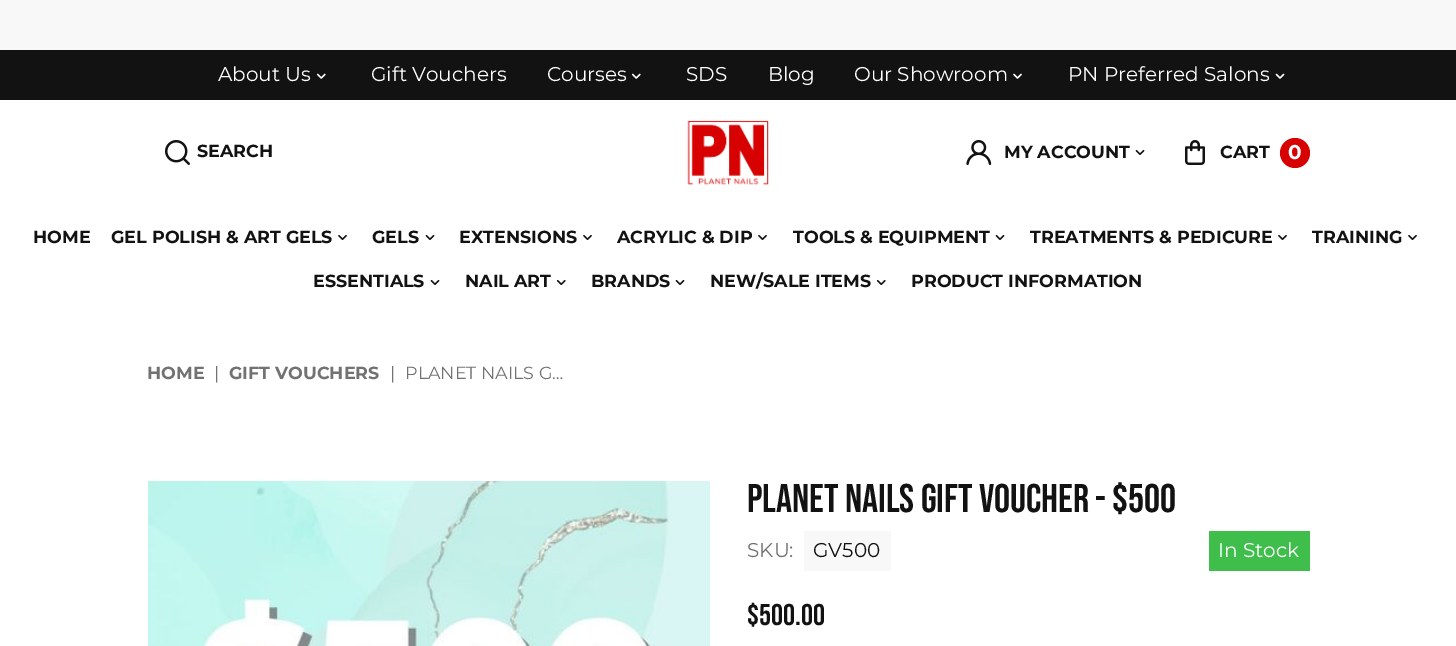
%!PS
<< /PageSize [1456 646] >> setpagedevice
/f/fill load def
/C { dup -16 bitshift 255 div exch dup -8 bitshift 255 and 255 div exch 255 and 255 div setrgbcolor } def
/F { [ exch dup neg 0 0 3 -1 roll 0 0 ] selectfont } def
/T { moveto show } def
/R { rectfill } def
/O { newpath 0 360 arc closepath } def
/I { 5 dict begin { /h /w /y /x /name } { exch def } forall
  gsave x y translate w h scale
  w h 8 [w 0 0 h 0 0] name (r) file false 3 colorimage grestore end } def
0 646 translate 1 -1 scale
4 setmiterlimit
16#FFFFFF C
0 0 1456 646 R
16#F8F8F8 C
0 0 1456 50 R
16#121212 C
0 50 1456 50 R
/Montserrat-Regular 20 F
16#FFFFFF C
(About Us) 218 81 T
(1.rgb) 316 73 10 6 I
(Gift Vouchers) 371 81 T
(Courses) 547 81 T
(1.rgb) 631 73 10 6 I
(SDS) 686 81 T
(Blog) 768 81 T
(Our Showroom) 854 81 T
(2.rgb) 1013 73 9 6 I
(PN Preferred Salons) 1068 81 T
(3.rgb) 1275 73 10 6 I
(4.rgb) 165 140 25 25 I
/Montserrat-Bold 17.5 F
16#121212 C
(SEARCH) 197 157 T
(5.rgb) 687 120 82 65 I
(6.rgb) 966 140 26 25 I
(MY ACCOUNT) 1004 158 T
(7.rgb) 1135 149 10 6 I
(8.rgb) 1185 140 20 25 I
(CART) 1220 158 T
16#D60100 C
1295 153 15 O f
/Montserrat-Bold 20 F
16#FFFFFF C
(0) 1288 159 T
/Montserrat-Bold 17.5 F
16#121212 C
(HOME) 33 243 T
(GEL POLISH & ART GELS) 111 243 T
(9.rgb) 338 235 9 6 I
(GELS) 372 243 T
(7.rgb) 425 234 10 6 I
(EXTENSIONS) 459 243 T
(9.rgb) 583 235 9 6 I
(ACRYLIC & DIP) 617 243 T
(9.rgb) 758 235 9 6 I
(TOOLS & EQUIPMENT) 793 243 T
(7.rgb) 995 234 10 6 I
(TREATMENTS & PEDICURE) 1030 243 T
(9.rgb) 1278 235 9 6 I
(TRAINING) 1312 243 T
(9.rgb) 1408 235 9 6 I
(ESSENTIALS) 313 287 T
(7.rgb) 430 279 10 6 I
(NAIL ART) 465 287 T
(10.rgb) 556 279 10 7 I
(BRANDS) 591 287 T
(7.rgb) 675 279 10 6 I
(NEW/SALE ITEMS) 710 287 T
(10.rgb) 876 279 10 7 I
(PRODUCT INFORMATION) 911 287 T
16#727272 C
(HOME) 147 379 T
/Montserrat-Regular 17.5 F
(|) 214 379 T
/Montserrat-Bold 17.5 F
(GIFT VOUCHERS) 229 379 T
/Montserrat-Regular 17.5 F
(|) 390 379 T
(PLANET NAILS G…) 405 379 T
(11.rgb) 148 481 562 165 I
/BebasNeue-Regular 40 F
16#121212 C
(Planet Nails Gift Voucher - $500) 747 512 T
/Montserrat-Regular 20 F
16#727272 C
(SKU:) 747 557 T
16#F8F8F8 C
804 531 87 40 R
16#121212 C
(GV500) 813 557 T
16#40BE4C C
1209 531 101 40 R
16#FFFFFF C
(In Stock) 1218 557 T
/BebasNeue-Regular 30 F
16#121212 C
($500.00) 747 625 T
showpage
